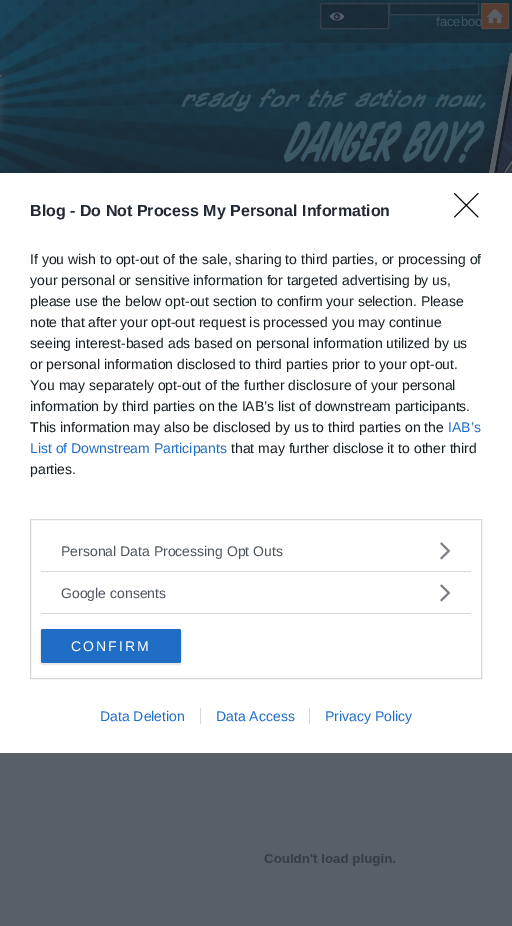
%!PS
<< /PageSize [512 926] /PageUsesTransparency true >> setpagedevice
/m/moveto load def
/l/rlineto load def
/f/fill load def
/s/stroke load def
/C { dup -16 bitshift 255 div exch dup -8 bitshift 255 and 255 div exch 255 and 255 div setrgbcolor } def
/F { [ exch dup neg 0 0 3 -1 roll 0 0 ] selectfont } def
/T { moveto show } def
/R { rectfill } def
/A { dup .setfillconstantalpha .setstrokeconstantalpha } def
/Q { 5 dict begin { /r /h /w /y /x } { exch def } forall
  x r add y moveto x w add y 2 copy h add r arct x w add y h add x 1 index r arct
  x y h add x y r arct x y 2 copy exch w add exch r arct closepath end } def
/S { 12 dict begin { /a /b /q /h /w /y /x } { exch def } forall gsave /was 0 def
  9 -2 -9 { dup b mul 4 div /e exch def 1 sub .425 mul 2.718 exch exp 1 add a .99 .min exch div /now exch def
    1 1 now sub 1 was sub div sub A /was now def
    w h .min e 2 mul add 0 gt { x e sub y e sub w e 2 mul add h e 2 mul add
      q e add b .6 mul add w h .min 2 div e add .min 0 .max Q fill } if } for grestore end } def
/I { 5 dict begin { /h /w /y /x /name } { exch def } forall
  gsave x y translate w h scale
  w h 8 [w 0 0 h 0 0] name (r) file false 3 colorimage grestore end } def
0 .pushpdf14devicefilter
0 926 translate 1 -1 scale
4 setmiterlimit
16#FFFFFF C
0 0 512 926 R
(1.rgb) 0 0 512 173 I
0.4 A
16#191F27 C
320 3 69 26 2 Q f
16#595F67 C
320.5 3.5 68 25 1.5 Q s
1 A
(2.rgb) 329 12 16 9 I
0.4 A
16#191F27 C
389 3 90 12 R
16#595F67 C
389.5 3.5 89 11 rectstroke
/LiberationSans-Regular 13 F
1 A
16#3C5767 C
(faceboo) 436 26 T
16#563C31 C
481 3 28 26 2 Q f
0.3 A
16#595F67 C
481.5 3.5 27 25 1.5 Q s
1 A
(3.rgb) 486 8 18 16 I
0 753 512 173 R
(4.rgb) 264 854 131 12 I
16#000000 C
1 setlinecap
1 setlinejoin
454.5 193.5 m 23.5 23.5 l 478 193.5 m -23.5 23.5 l s
/LiberationSans-Bold 16 F
16#212934 C
(Blog - Do Not Process My Personal Information) 30 216 T
/LiberationSans-Regular 14 F
16#141E23 C
(If you wish to opt-out of the sale, sharing to third parties, or processing of) 30 264 T
(your personal or sensitive information for targeted advertising by us,) 30 285 T
(please use the below opt-out section to confirm your selection. Please) 30 306 T
(note that after your opt-out request is processed you may continue) 30 327 T
(seeing interest-based ads based on personal information utilized by us) 30 348 T
(or personal information disclosed to third parties prior to your opt-out.) 30 369 T
(You may separately opt-out of the further disclosure of your personal) 30 390 T
(information by third parties on the IAB’s list of downstream participants.) 30 411 T
(This information may also be disclosed by us to third parties on the) 30 432 T
16#206DC5 C
(IAB’s) 448 432 T
(List of Downstream Participants) 30 453 T
16#141E23 C
(that may further disclose it to other third) 231 453 T
(parties.) 30 474 T
16#D8D8D8 C
0 setlinecap
0 setlinejoin
30.5 519.5 451 159 rectstroke
41 571 430 1 R
16#4D545D C
(Personal Data Processing Opt Outs) 61 556 T
(5.rgb) 440 542 10 18 I
16#D8D8D8 C
41 613 430 1 R
16#4D545D C
(Google consents) 61 598 T
(5.rgb) 440 584 10 18 I
16#000000 C
40 629 142 36 3 .5 .1 S
16#206DC5 C
41 629 140 34 2 Q f
16#FFFFFF C
71 651 m 2 0 (CONFIRM) ashow
16#206DC5 C
(Data Deletion) 100 721 T
(Data Access) 216 721 T
16#D8D8D8 C
200 708 1 16 R
16#206DC5 C
(Privacy Policy) 325 721 T
16#D8D8D8 C
309 708 1 16 R
.poppdf14devicefilter showpage
